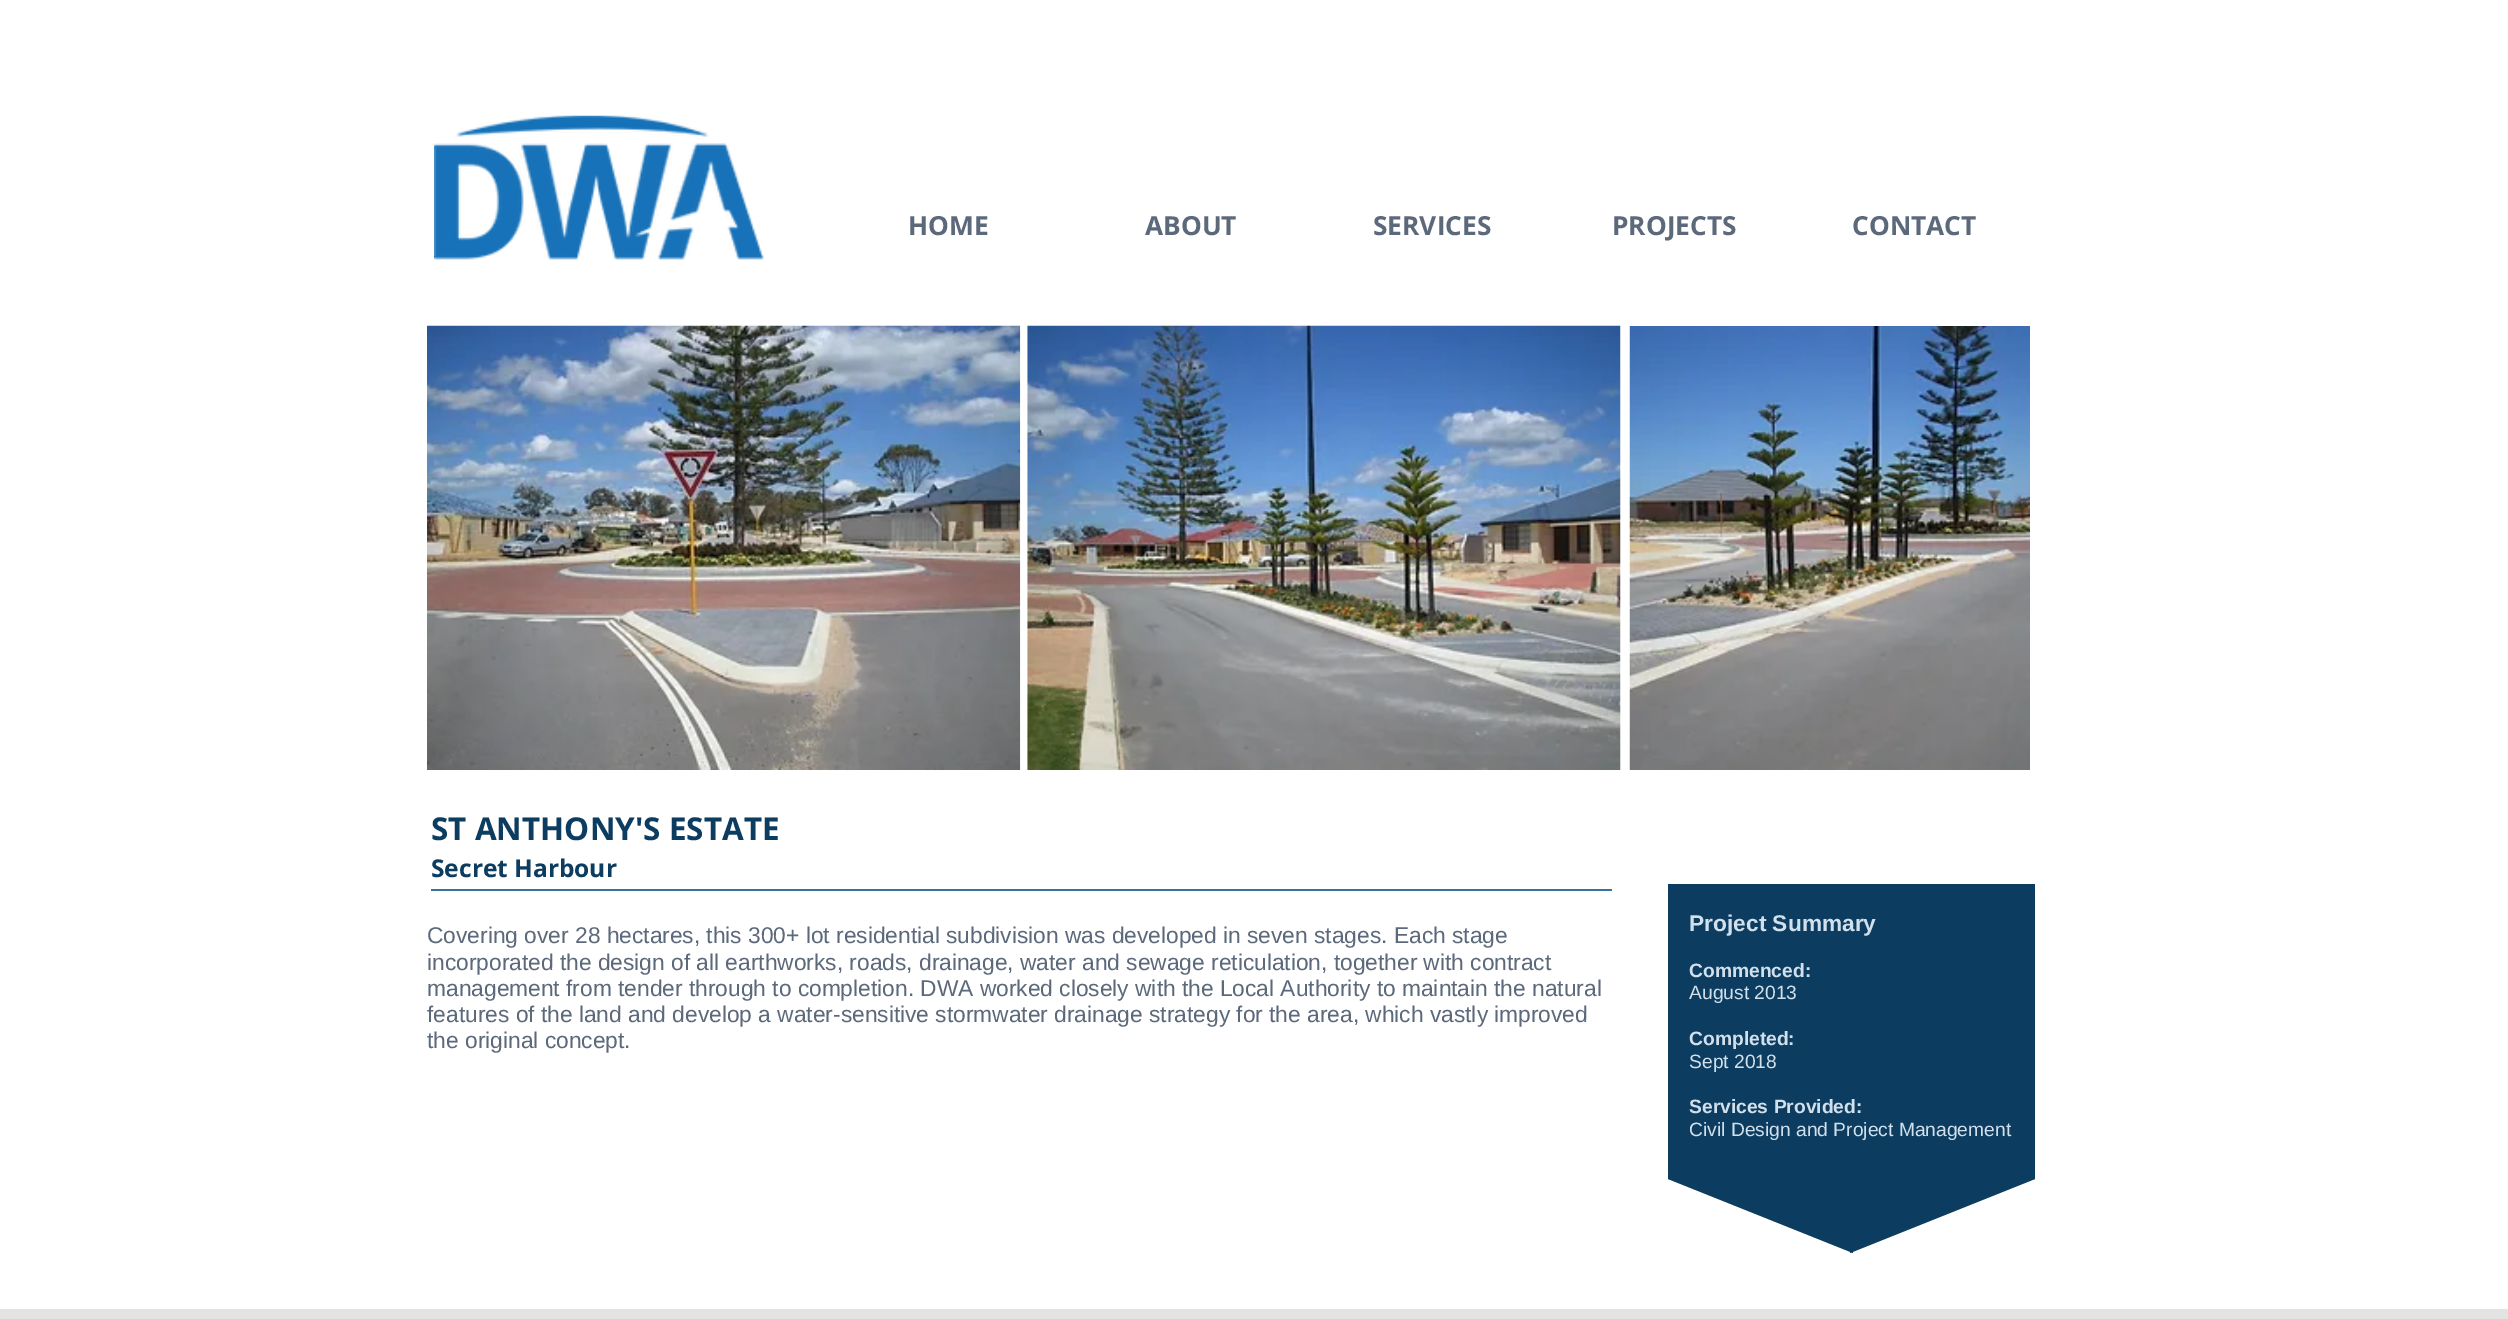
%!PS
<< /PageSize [2508 1319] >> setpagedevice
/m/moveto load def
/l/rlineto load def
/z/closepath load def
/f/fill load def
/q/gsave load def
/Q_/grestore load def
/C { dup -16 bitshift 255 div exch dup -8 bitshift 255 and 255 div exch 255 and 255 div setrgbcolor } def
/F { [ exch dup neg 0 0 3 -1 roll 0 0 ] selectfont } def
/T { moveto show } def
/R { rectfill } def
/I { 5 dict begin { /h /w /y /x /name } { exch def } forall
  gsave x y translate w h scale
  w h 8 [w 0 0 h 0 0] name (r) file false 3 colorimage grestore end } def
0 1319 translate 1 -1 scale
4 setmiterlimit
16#FFFFFF C
0 0 2508 1319 R
(1.rgb) 434 115 330 145 I
/OpenSans-Bold 26.25 F
16#5C697B C
(HOME) 908 235 T
(ABOUT) 1145 235 T
(SERVICES) 1373 235 T
(PROJECTS) 1612 235 T
(CONTACT) 1852 235 T
(2.rgb) 427 325 594 445 I
(3.rgb) 1027 325 594 445 I
(4.rgb) 1629 326 401 444 I
/OpenSans-Bold 31.5 F
16#0C3C60 C
(ST ANTHONY'S ESTATE) 431 840 T
/OpenSans-Bold 24.5 F
(Secret Harbour) 431 877 T
16#39729B C
431 889 1181 2 R
/LiberationSans-Regular 22.75 F
16#5C697B C
(Covering over 28 hectares, this 300+ lot residential subdivision was developed in seven stages. Each stage) 427 943 T
(incorporated the design of all earthworks, roads, drainage, water and sewage reticulation, together with contract) 427 970 T
(management from tender through to completion. DWA worked closely with the Local Authority to maintain the natural) 427 996 T
(features of the land and develop a water-sensitive stormwater drainage strategy for the area, which vastly improved) 427 1022 T
(the original concept.) 427 1048 T
16#0C3C60 C
1668 884 367 19 R
q
1668 884 367 371 rectclip
1850 1253 m 0 -350 l 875 0 l z f
1853 903 m 0 350 l -875 -350 l z f
Q_
/LiberationSans-Bold 22.75 F
16#D1E0EB C
(Project Summary) 1689 931 T
/LiberationSans-Bold 19.25 F
(Commenced:) 1689 977 T
/LiberationSans-Regular 19.25 F
(August 2013) 1689 999 T
/LiberationSans-Bold 19.25 F
(Completed:) 1689 1045 T
/LiberationSans-Regular 19.25 F
(Sept 2018) 1689 1068 T
/LiberationSans-Bold 19.25 F
(Services Provided:) 1689 1113 T
/LiberationSans-Regular 19.25 F
(Civil Design and Project Management) 1689 1136 T
16#E3E3E2 C
0 1309 2508 10 R
showpage
